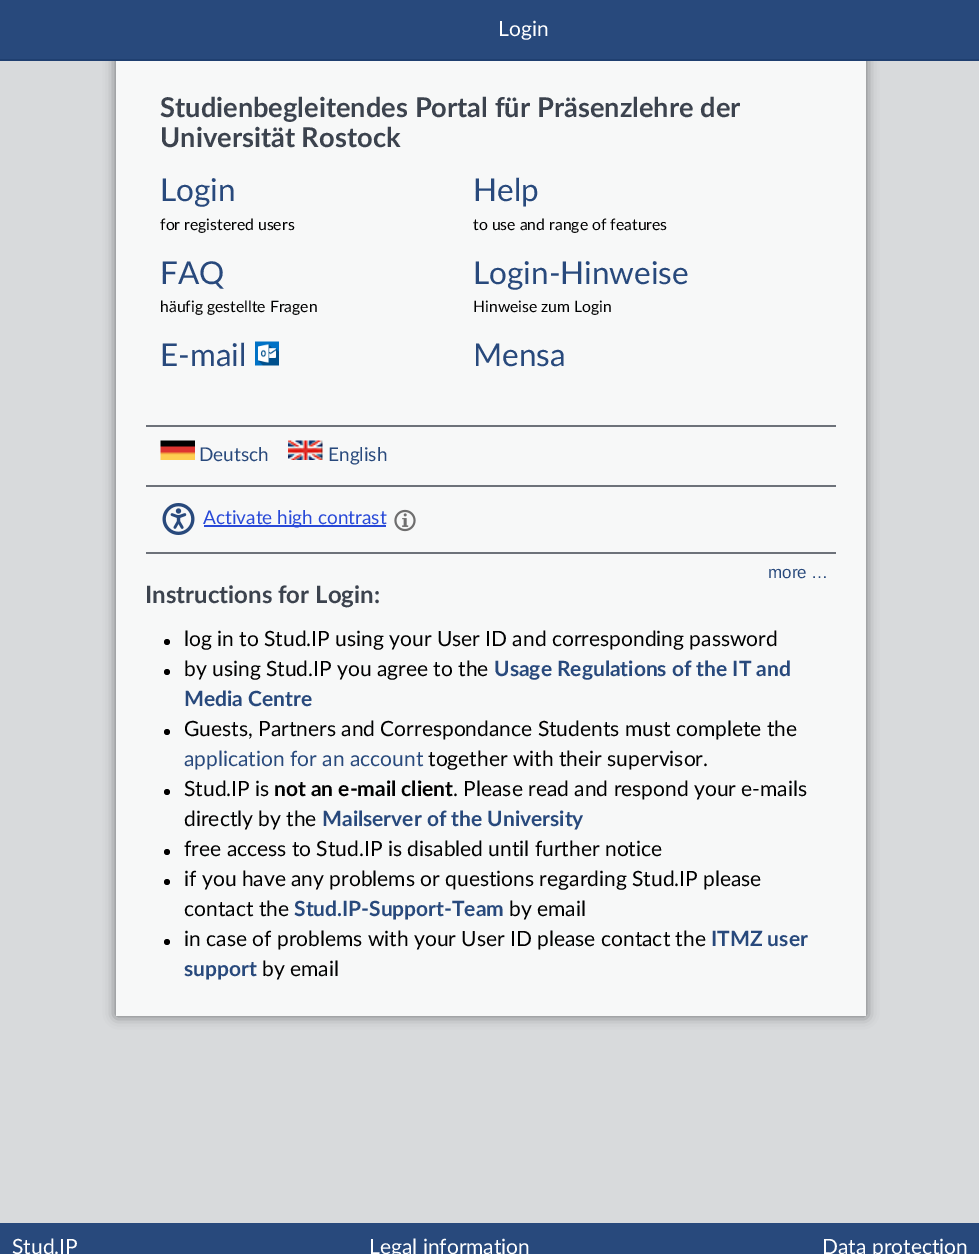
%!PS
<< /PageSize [979 1254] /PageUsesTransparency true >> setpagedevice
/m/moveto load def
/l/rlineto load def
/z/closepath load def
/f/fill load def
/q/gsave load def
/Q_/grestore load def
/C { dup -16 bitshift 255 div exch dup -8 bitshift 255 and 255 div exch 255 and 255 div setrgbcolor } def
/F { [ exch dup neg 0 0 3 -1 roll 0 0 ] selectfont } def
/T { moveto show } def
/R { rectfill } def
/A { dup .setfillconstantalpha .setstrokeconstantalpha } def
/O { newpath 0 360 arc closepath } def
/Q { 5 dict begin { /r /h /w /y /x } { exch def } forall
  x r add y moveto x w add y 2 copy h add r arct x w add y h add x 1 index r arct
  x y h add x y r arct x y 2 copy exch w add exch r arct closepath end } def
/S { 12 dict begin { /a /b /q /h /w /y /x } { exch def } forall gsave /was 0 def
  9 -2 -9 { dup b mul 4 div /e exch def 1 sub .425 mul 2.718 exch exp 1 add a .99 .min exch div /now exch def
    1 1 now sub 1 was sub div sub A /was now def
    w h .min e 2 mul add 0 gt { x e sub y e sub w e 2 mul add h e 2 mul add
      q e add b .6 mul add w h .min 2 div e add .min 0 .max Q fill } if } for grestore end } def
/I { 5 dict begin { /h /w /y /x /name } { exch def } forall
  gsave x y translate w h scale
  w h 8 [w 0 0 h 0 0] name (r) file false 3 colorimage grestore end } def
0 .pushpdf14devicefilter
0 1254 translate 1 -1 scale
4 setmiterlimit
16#D8DADC C
0 0 979 1254 R
q
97 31 m 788 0 l 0 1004 l -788 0 l z 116 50 m 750 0 l 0 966 l -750 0 l z eoclip newpath
16#000000 C
116 50 750 966 0 6 .5 S
Q_
16#28497C C
0 0 979 59 R
16#1F3F70 C
0 59 979 2 R
/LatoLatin-Regular 21 F
16#FFFFFF C
(Login) 498 36 T
0.8 A
116 61 750 955 R
/LatoLatin-Bold 27.3 F
1 A
16#3C434E C
(Studienbegleitendes Portal für Präsenzlehre der) 160 117 T
(Universität Rostock) 160 147 T
/LatoLatin-Regular 31.5 F
16#28497C C
(Login) 160 201 T
/LatoLatin-Regular 15.75 F
16#000000 C
(for registered users) 160 230 T
/LatoLatin-Regular 31.5 F
16#28497C C
(Help) 473 201 T
/LatoLatin-Regular 15.75 F
16#000000 C
(to use and range of features) 473 230 T
/LatoLatin-Regular 31.5 F
16#28497C C
(FAQ) 160 284 T
/LatoLatin-Regular 15.75 F
16#000000 C
(häufig gestellte Fragen) 160 312 T
/LatoLatin-Regular 31.5 F
16#28497C C
(Login-Hinweise) 473 284 T
/LatoLatin-Regular 15.75 F
16#000000 C
(Hinweise zum Login) 473 312 T
/LatoLatin-Regular 31.5 F
16#28497C C
(E-mail) 160 366 T
(1.rgb) 255 341 24 25 I
(Mensa) 473 366 T
16#6D727A C
146 425 690 2 R
(2.rgb) 160 440 35 20 I
/LatoLatin-Regular 19 F
16#28497C C
(Deutsch) 199 461 T
(3.rgb) 288 440 35 20 I
(English) 328 461 T
16#6D727A C
146 485 690 2 R
(4.rgb) 162 503 33 32 I
16#2849D8 C
204 525 182 2 R
(Activate high contrast) 203 524 T
(5.rgb) 394 509 22 23 I
16#6D727A C
146 552 690 2 R
/LiberationSans-Regular 17 F
16#28497C C
(more …) 768 578 T
/LatoLatin-Bold 24 F
16#3C434E C
(Instructions for Login:) 145 603 T
16#000000 C
167 642 3 O f
/LatoLatin-Regular 21 F
(log in to Stud.IP using your User ID and corresponding password) 184 646 T
167 672 3 O f
(by using Stud.IP you agree to the) 184 676 T
/LatoLatin-Bold 21 F
16#28497C C
(Usage Regulations of the IT and) 494 676 T
(Media Centre) 184 706 T
16#000000 C
167 732 3 O f
/LatoLatin-Regular 21 F
(Guests, Partners and Correspondance Students must complete the) 184 736 T
16#28497C C
(application for an account) 184 766 T
16#000000 C
(together with their supervisor.) 428 766 T
167 792 3 O f
(Stud.IP is) 184 796 T
/LatoLatin-Bold 21 F
(not an e-mail client) 274 796 T
/LatoLatin-Regular 21 F
(. Please read and respond your e-mails) 453 796 T
(directly by the) 184 826 T
/LatoLatin-Bold 21 F
16#28497C C
(Mailserver of the University) 322 826 T
16#000000 C
167 852 3 O f
/LatoLatin-Regular 21 F
(free access to Stud.IP is disabled until further notice) 184 856 T
167 882 3 O f
(if you have any problems or questions regarding Stud.IP please) 184 886 T
(contact the) 184 916 T
/LatoLatin-Bold 21 F
16#28497C C
(Stud.IP-Support-Team) 294 916 T
/LatoLatin-Regular 21 F
16#000000 C
(by email) 509 916 T
167 942 3 O f
(in case of problems with your User ID please contact the) 184 946 T
/LatoLatin-Bold 21 F
16#28497C C
(ITMZ user) 711 946 T
(support) 184 976 T
/LatoLatin-Regular 21 F
16#000000 C
(by email) 262 976 T
16#28497C C
0 1223 979 31 R
16#FFFFFF C
(Stud.IP) 12 1254 T
(Legal information) 369 1254 T
(Data protection) 822 1254 T
.poppdf14devicefilter showpage
